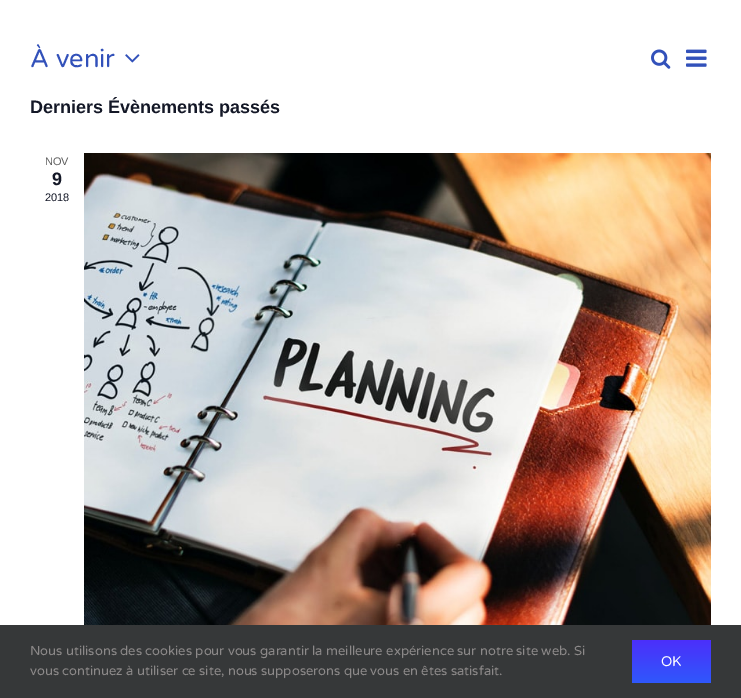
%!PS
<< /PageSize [741 698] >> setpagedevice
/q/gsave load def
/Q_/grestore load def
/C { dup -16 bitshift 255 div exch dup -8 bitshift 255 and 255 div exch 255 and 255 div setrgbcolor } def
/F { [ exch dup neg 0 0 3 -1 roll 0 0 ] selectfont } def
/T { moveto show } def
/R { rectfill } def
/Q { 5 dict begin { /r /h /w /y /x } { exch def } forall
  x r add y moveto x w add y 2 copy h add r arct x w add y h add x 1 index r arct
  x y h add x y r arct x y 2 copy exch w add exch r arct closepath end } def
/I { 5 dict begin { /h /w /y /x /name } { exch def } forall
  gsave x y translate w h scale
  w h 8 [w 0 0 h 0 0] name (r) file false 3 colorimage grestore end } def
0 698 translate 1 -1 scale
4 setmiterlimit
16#FFFFFF C
0 0 741 698 R
/VarelaRound-Regular 25.5 F
16#3251BA C
(À venir) 30 67 T
(1.rgb) 125 54 15 9 I
(2.rgb) 651 49 20 20 I
(3.rgb) 686 49 21 18 I
/LiberationSans-Bold 18 F
16#141827 C
(Derniers Évènements passés) 30 113 T
/LiberationSans-Regular 11 F
16#5D5D5D C
(NOV) 45 165 T
/LiberationSans-Bold 18 F
16#141827 C
(9) 52 185 T
/LiberationSans-Regular 11 F
(2018) 45 201 T
(4.rgb) 84 153 627 472 I
16#363839 C
0 625 741 73 R
/VarelaRound-Regular 13 F
16#8C8989 C
(Nous utilisons des cookies pour vous garantir la meilleure expérience sur notre site web. Si) 30 655 T
(vous continuez à utiliser ce site, nous supposerons que vous en êtes satisfait.) 30 675 T
q 632 640 79 43 2 Q clip newpath
<< /ShadingType 2 /ColorSpace /DeviceRGB /Coords [672 640 672 683] /Extend [true true] /Function << /FunctionType 2 /Domain [0 1] /C0 [.298 .184 .98] /C1 [.184 .345 .988] /N 1 >> >> shfill Q_
/VarelaRound-Regular 14 F
16#FFFFFF C
(OK) 661 666 T
showpage
